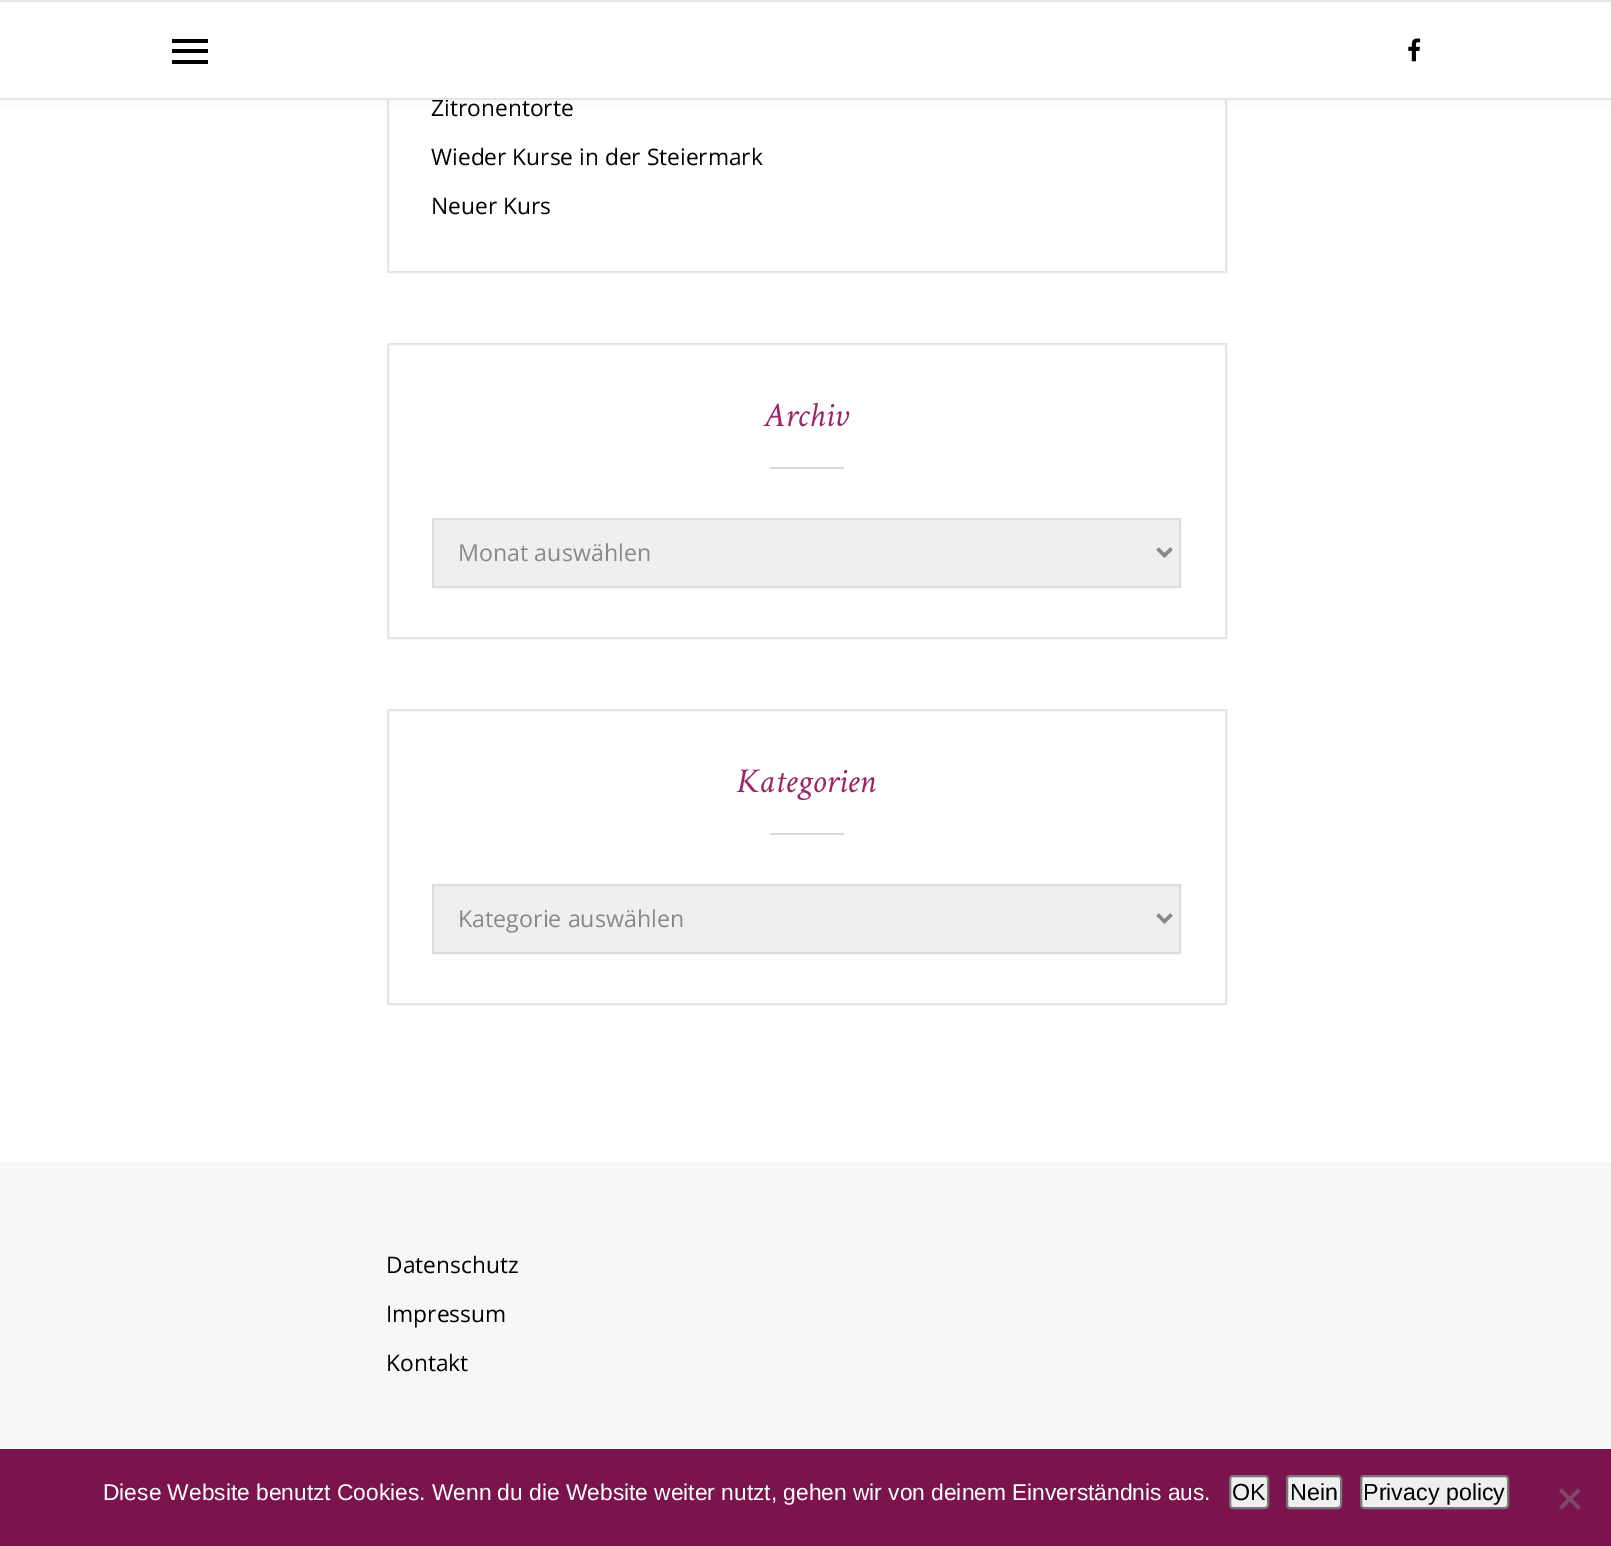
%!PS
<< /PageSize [1611 1546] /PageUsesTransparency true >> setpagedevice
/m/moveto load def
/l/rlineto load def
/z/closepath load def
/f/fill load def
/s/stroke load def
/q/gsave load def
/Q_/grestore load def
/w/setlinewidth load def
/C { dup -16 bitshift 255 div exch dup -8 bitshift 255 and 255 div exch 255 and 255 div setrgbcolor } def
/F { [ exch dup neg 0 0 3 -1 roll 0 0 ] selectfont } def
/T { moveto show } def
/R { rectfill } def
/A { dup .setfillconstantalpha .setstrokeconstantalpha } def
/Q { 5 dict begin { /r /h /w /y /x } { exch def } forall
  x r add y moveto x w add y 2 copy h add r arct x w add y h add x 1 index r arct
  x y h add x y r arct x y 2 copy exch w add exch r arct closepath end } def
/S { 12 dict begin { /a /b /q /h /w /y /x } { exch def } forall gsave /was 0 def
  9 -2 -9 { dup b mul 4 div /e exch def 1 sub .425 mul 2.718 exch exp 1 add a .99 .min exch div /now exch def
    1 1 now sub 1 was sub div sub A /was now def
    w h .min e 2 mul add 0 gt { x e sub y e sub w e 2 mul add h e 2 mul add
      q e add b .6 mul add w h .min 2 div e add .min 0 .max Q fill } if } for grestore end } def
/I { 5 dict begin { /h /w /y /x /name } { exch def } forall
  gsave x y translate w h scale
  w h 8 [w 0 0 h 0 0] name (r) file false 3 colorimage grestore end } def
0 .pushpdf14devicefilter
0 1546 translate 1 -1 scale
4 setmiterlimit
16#FFFFFF C
0 0 1611 1546 R
16#E5E5E5 C
2 w
388 -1 838 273 rectstroke
16#BEBEBE C
0 2 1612 100 0 4.5 .16 S
16#FFFFFF C
0 2 1611 96 R
16#E5E5E5 C
0 0 1611 2 R
/OpenSans-Regular 22.75 F
16#000000 C
(Zitronentorte) 431 116 T
16#E5E5E5 C
0 98 1611 2 R
16#000000 C
172 39 36 4 R
172 49 36 4 R
172 60 36 4 R
(1.rgb) 1408 38 13 24 I
(Wieder Kurse in der Steiermark) 431 165 T
(Neuer Kurs) 431 214 T
16#E5E5E5 C
388 344 838 294 rectstroke
/CrimsonText-Italic 35 F
16#9B2466 C
(Archiv) 764 426 T
16#D9D9D9 C
770 467 74 2 R
16#EFEFEF C
433 519 m 747 0 l 0 68 l -747 0 l z q f Q_
16#DDDDDD C
s
16#888888 C
3.5 w
1157.5 548.5 m 7 7 l 7 -7 l s
/OpenSans-Regular 23.25 F
(Monat auswählen) 458 561 T
16#E5E5E5 C
2 w
388 710 838 294 rectstroke
/CrimsonText-Italic 35 F
16#9B2466 C
(Kategorien) 736 792 T
16#D9D9D9 C
770 833 74 2 R
16#EFEFEF C
433 885 m 747 0 l 0 68 l -747 0 l z q f Q_
16#DDDDDD C
s
16#888888 C
3.5 w
1157.5 914.5 m 7 7 l 7 -7 l s
/OpenSans-Regular 23.25 F
(Kategorie auswählen) 458 927 T
16#F7F7F7 C
0 1162 1611 287 R
/OpenSans-Regular 22.75 F
16#000000 C
(Datenschutz) 386 1273 T
(Impressum) 386 1322 T
(Kontakt) 386 1371 T
16#7B144D C
0 1449 1611 97 R
/LiberationSans-Regular 22.75 F
16#FFFFFF C
(Diese Website benutzt Cookies. Wenn du die Website weiter nutzt, gehen wir von deinem Einverständnis aus.) 103 1500 T
16#EFEFEF C
1230 1476 38 32 3 Q q f Q_
16#767676 C
2 w
s
/LiberationSans-Regular 23.25 F
16#000000 C
(OK) 1232 1500 T
16#EFEFEF C
1287 1476 54 32 3 Q q f Q_
16#767676 C
s
16#000000 C
(Nein) 1290 1500 T
16#EFEFEF C
1361 1476 147 32 3 Q q f Q_
16#767676 C
s
16#000000 C
(Privacy policy) 1363 1500 T
16#7E4A67 C
1578 1488.5 m 2.5 2.5 l -19 18.5 l -2.5 -2.5 l z f
1559 1491 m 2.5 -2.5 l 19 18.5 l -2.5 2.5 l z f
.poppdf14devicefilter showpage
